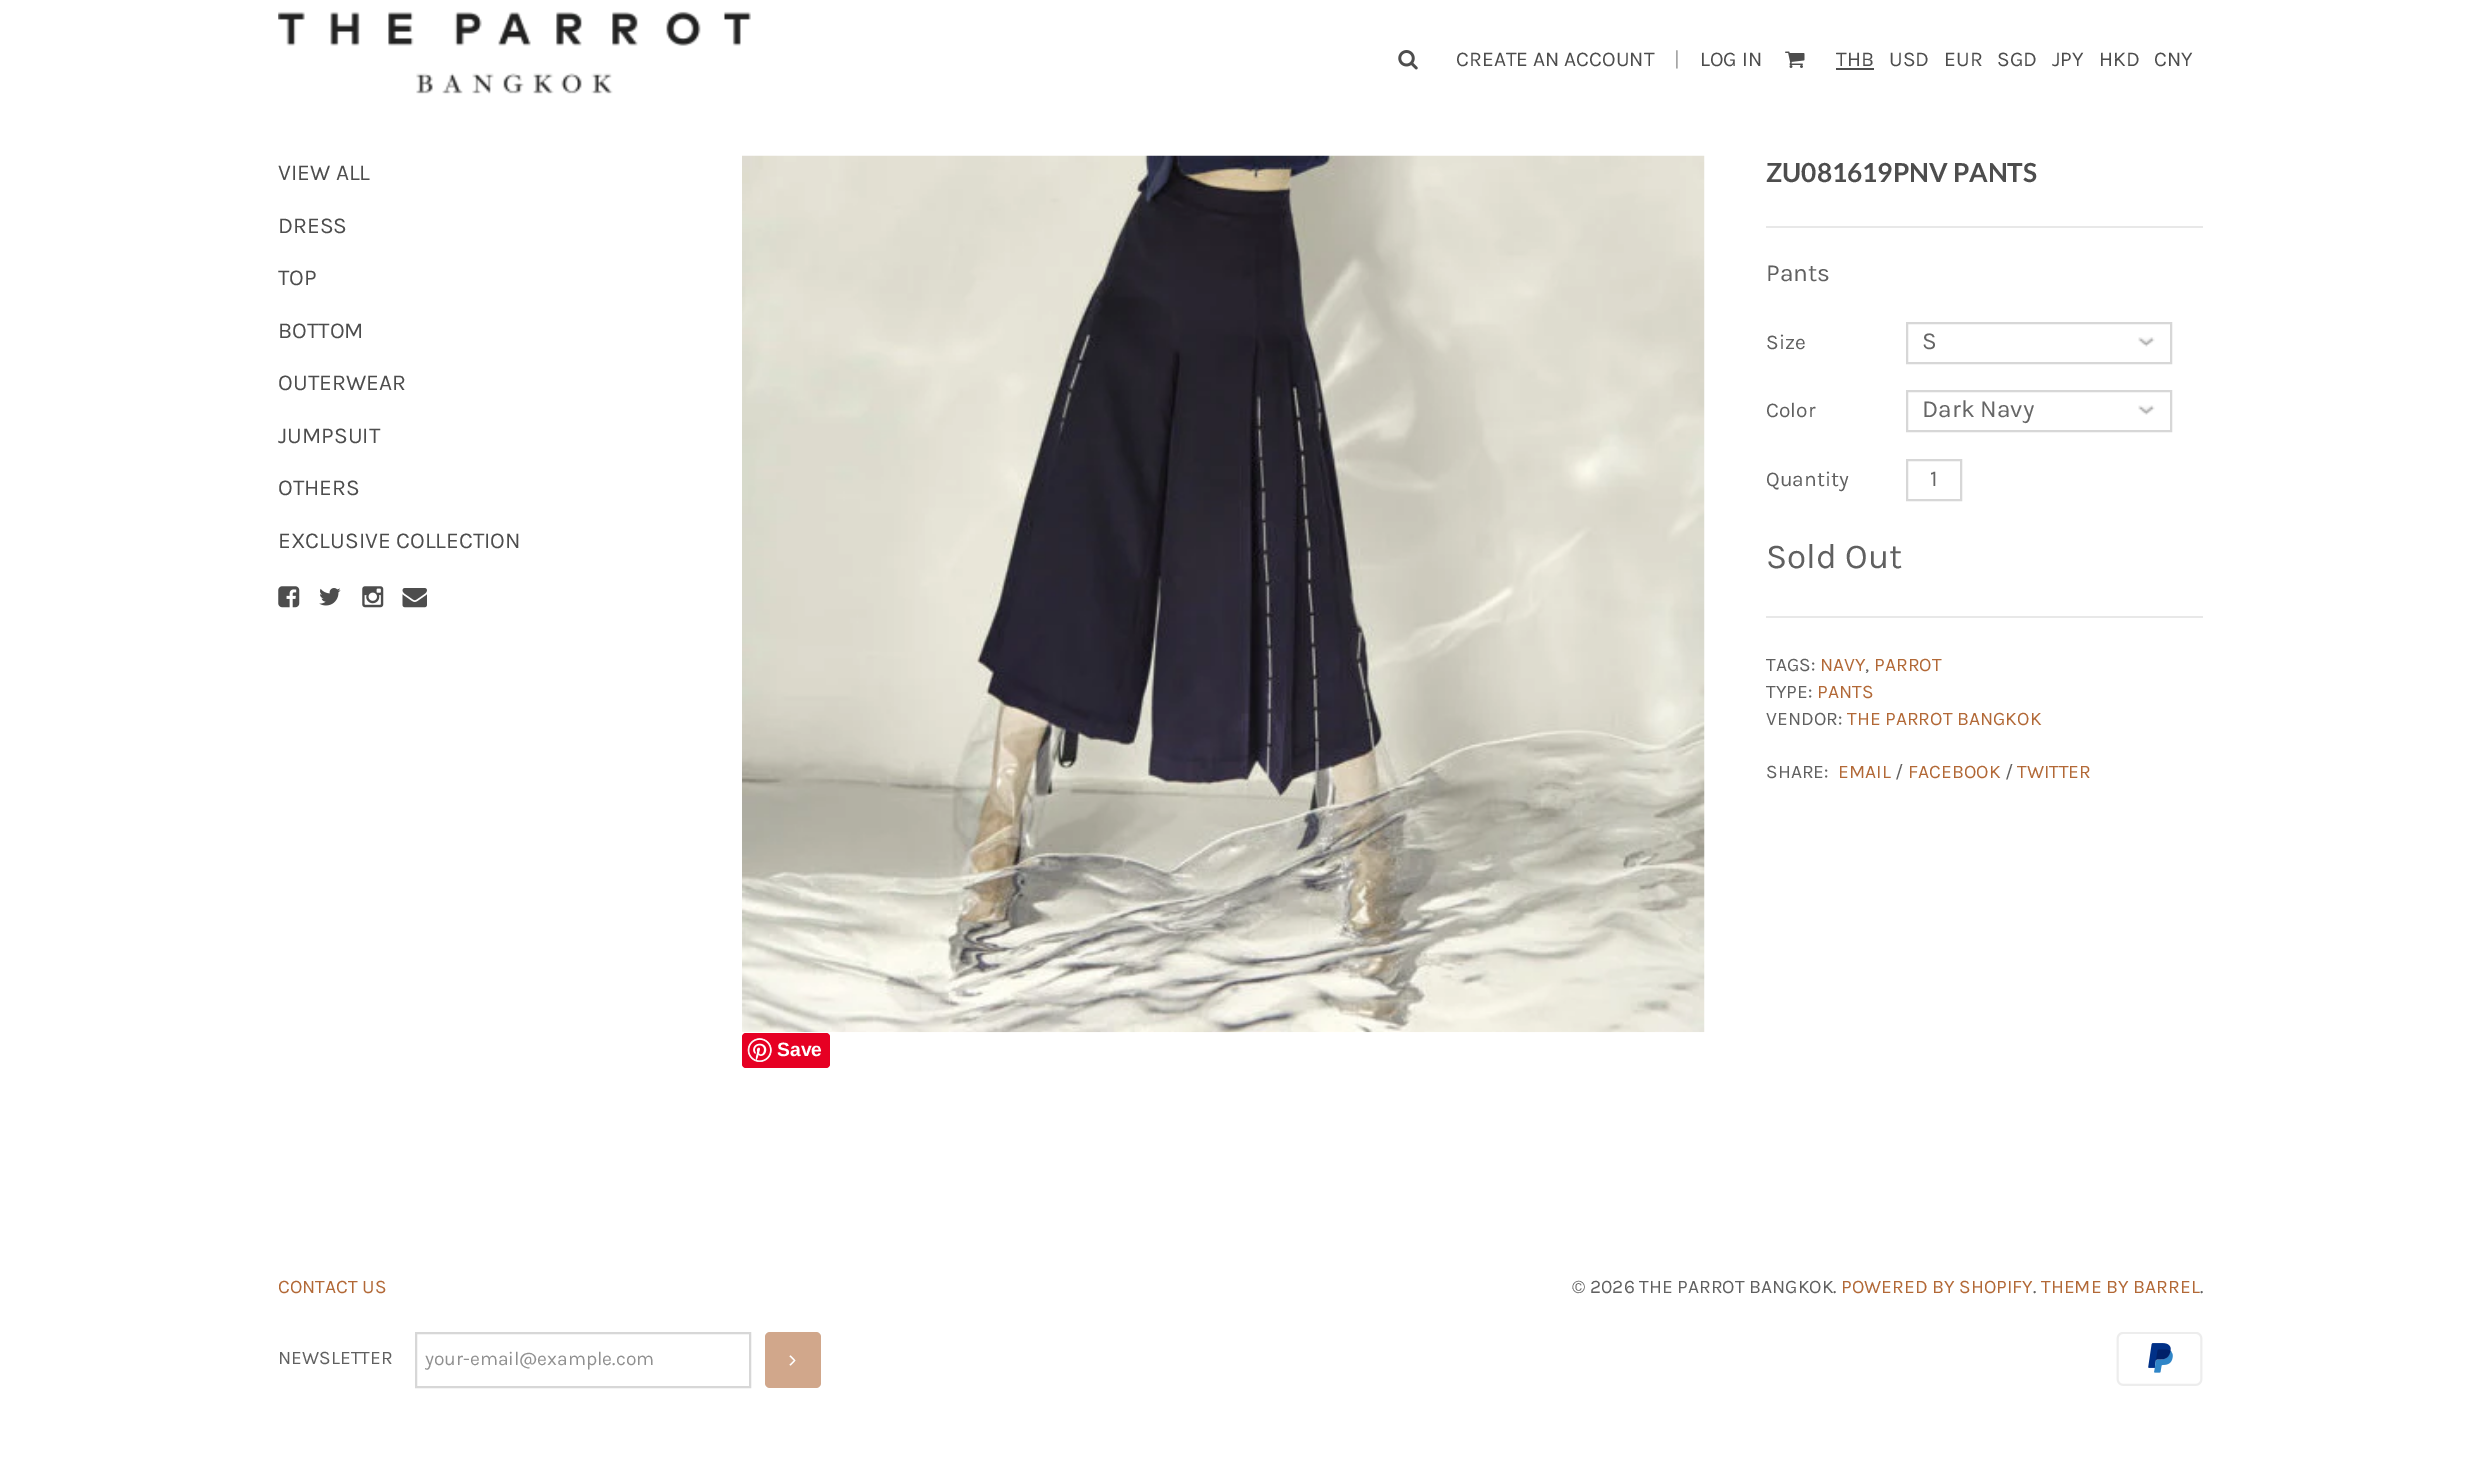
%!PS
<< /PageSize [2480 1473] >> setpagedevice
/f/fill load def
/w/setlinewidth load def
/C { dup -16 bitshift 255 div exch dup -8 bitshift 255 and 255 div exch 255 and 255 div setrgbcolor } def
/F { [ exch dup neg 0 0 3 -1 roll 0 0 ] selectfont } def
/T { moveto show } def
/R { rectfill } def
/Q { 5 dict begin { /r /h /w /y /x } { exch def } forall
  x r add y moveto x w add y 2 copy h add r arct x w add y h add x 1 index r arct
  x y h add x y r arct x y 2 copy exch w add exch r arct closepath end } def
/I { 5 dict begin { /h /w /y /x /name } { exch def } forall
  gsave x y translate w h scale
  w h 8 [w 0 0 h 0 0] name (r) file false 3 colorimage grestore end } def
0 1473 translate 1 -1 scale
4 setmiterlimit
16#FFFFFF C
0 0 2480 1473 R
(1.rgb) 278 11 473 83 I
(2.rgb) 1398 50 20 20 I
/Karla-Regular 21 F
16#4D4D4D C
(CREATE AN ACCOUNT) 1456 66 T
16#A6A6A6 C
(|) 1674 66 T
16#4D4D4D C
(LOG IN) 1700 66 T
(3.rgb) 1785 51 20 17 I
(THB) 1836 66 T
1836 68 38 2 R
(USD) 1889 66 T
(EUR) 1944 66 T
(SGD) 1997 66 T
(JPY) 2052 66 T
(HKD) 2099 66 T
(CNY) 2154 66 T
/Karla-Regular 22.75 F
(VIEW ALL) 278 180 T
(DRESS) 278 233 T
(TOP) 278 285 T
(BOTTOM) 278 338 T
(OUTERWEAR) 278 390 T
(JUMPSUIT) 278 443 T
(OTHERS) 278 495 T
(EXCLUSIVE COLLECTION) 278 548 T
(4.rgb) 278 586 22 22 I
(5.rgb) 319 588 22 18 I
(6.rgb) 362 586 22 22 I
(7.rgb) 402 588 25 20 I
/Lato-Bold 26.25 F
(ZU081619PNV PANTS) 1766 182 T
16#E8E8E8 C
1766 226 437 2 R
/Karla-Regular 24.5 F
16#606060 C
(Pants) 1766 281 T
/Karla-Regular 21 F
(Size) 1766 349 T
16#D7D7D7 C
2 w
1907 323 264 40 rectstroke
/Karla-Regular 24.5 F
16#666666 C
(S) 1922 349 T
(8.rgb) 2138 337 17 10 I
/Karla-Regular 21 F
16#606060 C
(Color) 1766 417 T
16#D7D7D7 C
1907 391 264 40 rectstroke
/Karla-Regular 24.5 F
16#666666 C
(Dark Navy) 1922 417 T
(9.rgb) 2138 405 17 10 I
/Karla-Regular 21 F
16#606060 C
(Quantity) 1766 486 T
16#D7D7D7 C
1907 460 54 40 rectstroke
/Karla-Regular 22.75 F
16#666666 C
(1) 1930 486 T
/Karla-Regular 35 F
16#606060 C
(Sold Out) 1766 568 T
16#E8E8E8 C
1766 616 437 2 R
/Karla-Regular 19.25 F
16#606060 C
(TAGS:) 1766 671 T
16#B26836 C
(NAVY) 1820 671 T
16#606060 C
(,) 1865 671 T
16#B26836 C
(PARROT) 1874 671 T
16#606060 C
(TYPE:) 1766 698 T
16#B26836 C
(PANTS) 1817 698 T
16#606060 C
(VENDOR:) 1766 725 T
16#B26836 C
(THE PARROT BANGKOK) 1847 725 T
16#606060 C
(SHARE:) 1766 778 T
16#B26836 C
(EMAIL) 1838 778 T
16#606060 C
(/) 1895 778 T
16#B26836 C
(FACEBOOK) 1908 778 T
16#606060 C
(/) 2005 778 T
16#B26836 C
(TWITTER) 2017 778 T
(10.rgb) 742 155 963 878 I
16#E60023 C
742 1033 88 35 4 Q f
(11.rgb) 747 1038 25 24 I
/LiberationSans-Bold 19.25 F
16#FFFFFF C
(Save) 777 1056 T
/Karla-Regular 19.25 F
16#B26836 C
(CONTACT US) 278 1293 T
16#606060 C
(© 2026 THE PARROT BANGKOK.) 1572 1293 T
16#B26836 C
(POWERED BY SHOPIFY) 1841 1293 T
16#606060 C
(.) 2033 1293 T
16#B26836 C
(THEME BY BARREL) 2041 1293 T
16#606060 C
(.) 2200 1293 T
(NEWSLETTER) 278 1364 T
16#D7D7D7 C
416 1333 334 54 rectstroke
16#909090 C
(your-email@example.com) 425 1365 T
16#D1A78B C
765 1332 56 56 5 Q f
/Karla-Regular 24.5 F
16#FFFFFF C
(›) 788 1367 T
(12.rgb) 2116 1332 87 54 I
showpage
